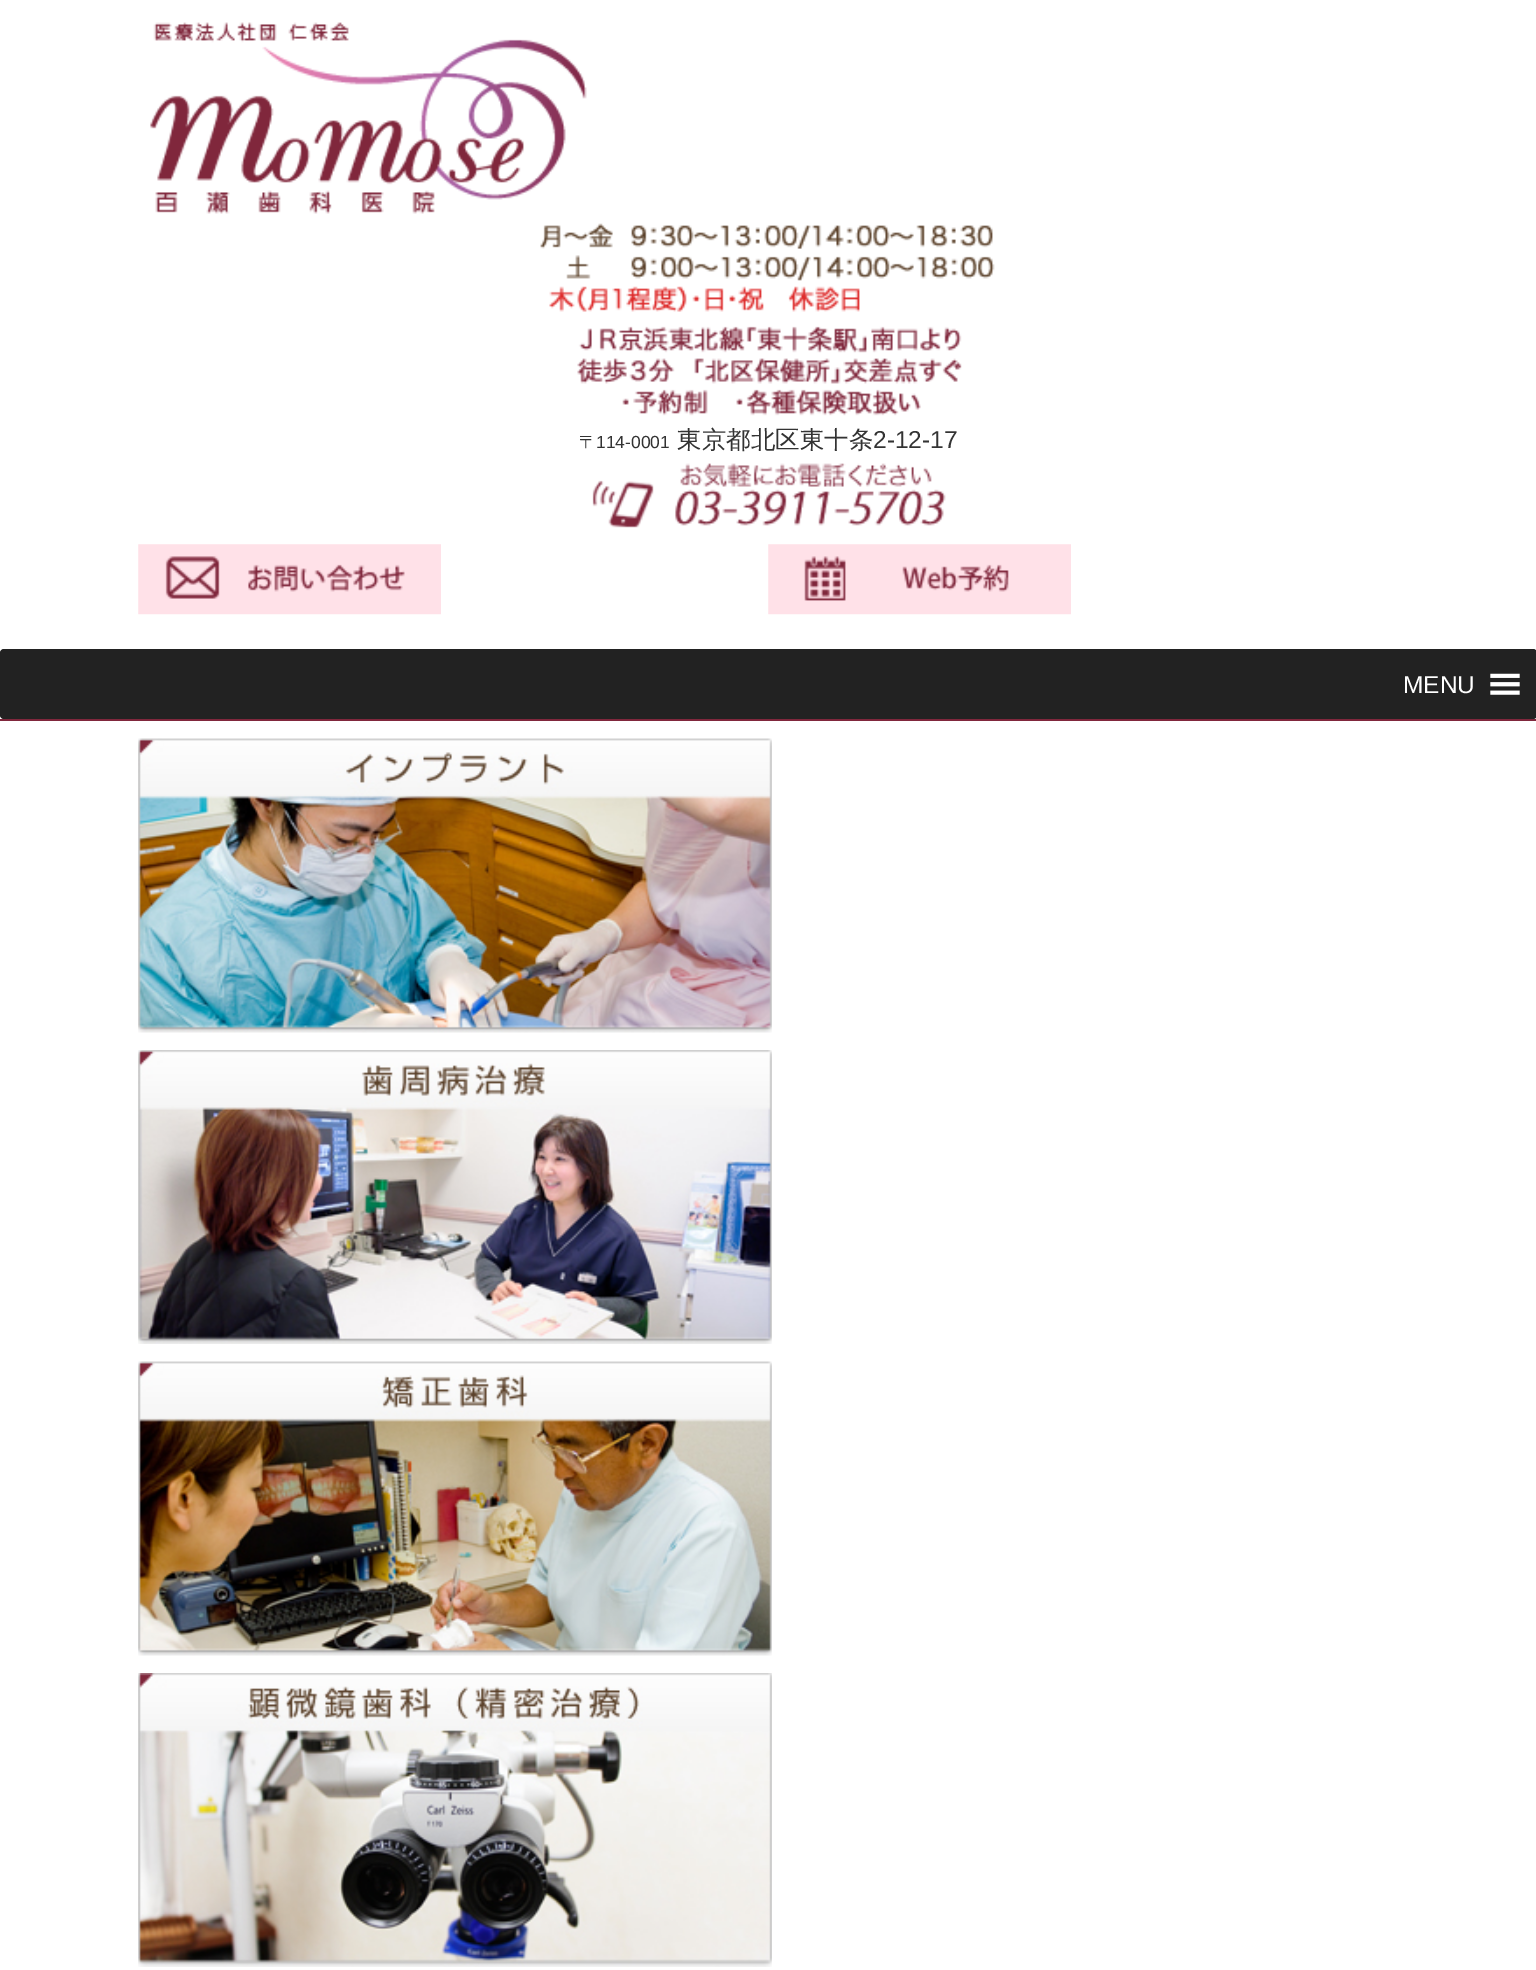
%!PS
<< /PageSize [1536 1970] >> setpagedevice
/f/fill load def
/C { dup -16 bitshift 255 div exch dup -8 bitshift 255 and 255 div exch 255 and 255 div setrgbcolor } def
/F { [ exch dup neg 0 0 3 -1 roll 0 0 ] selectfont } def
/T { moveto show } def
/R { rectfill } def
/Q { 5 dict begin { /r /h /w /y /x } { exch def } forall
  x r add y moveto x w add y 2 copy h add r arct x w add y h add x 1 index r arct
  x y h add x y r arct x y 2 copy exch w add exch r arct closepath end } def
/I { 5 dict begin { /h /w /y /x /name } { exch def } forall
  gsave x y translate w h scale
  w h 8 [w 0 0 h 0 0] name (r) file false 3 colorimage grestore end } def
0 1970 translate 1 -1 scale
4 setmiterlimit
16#FFFFFF C
0 0 1536 1970 R
(1.rgb) 150 22 437 192 I
(2.rgb) 540 223 455 193 I
/WenQuanYiZenHei-Medium 17.5 F
16#333333 C
(〒) 579 448 T
/LiberationSans-Regular 17.5 F
(114-0001) 596 448 T
/WenQuanYiZenHei-Medium 24.5 F
(東京都北区東十条) 677 448 T
/LiberationSans-Regular 24.5 F
(2-12-17) 873 448 T
(3.rgb) 592 463 354 65 I
(4.rgb) 138 544 303 71 I
(5.rgb) 768 544 303 71 I
16#80273C C
0 719 1536 2 R
16#222222 C
0 649 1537 70 4 Q f
16#FFFFFF C
(MENU) 1403 693 T
(6.rgb) 1490 673 30 22 I
(7.rgb) 138 738 634 295 I
(8.rgb) 138 1050 634 294 I
(9.rgb) 138 1361 634 295 I
(10.rgb) 138 1673 634 294 I
showpage
